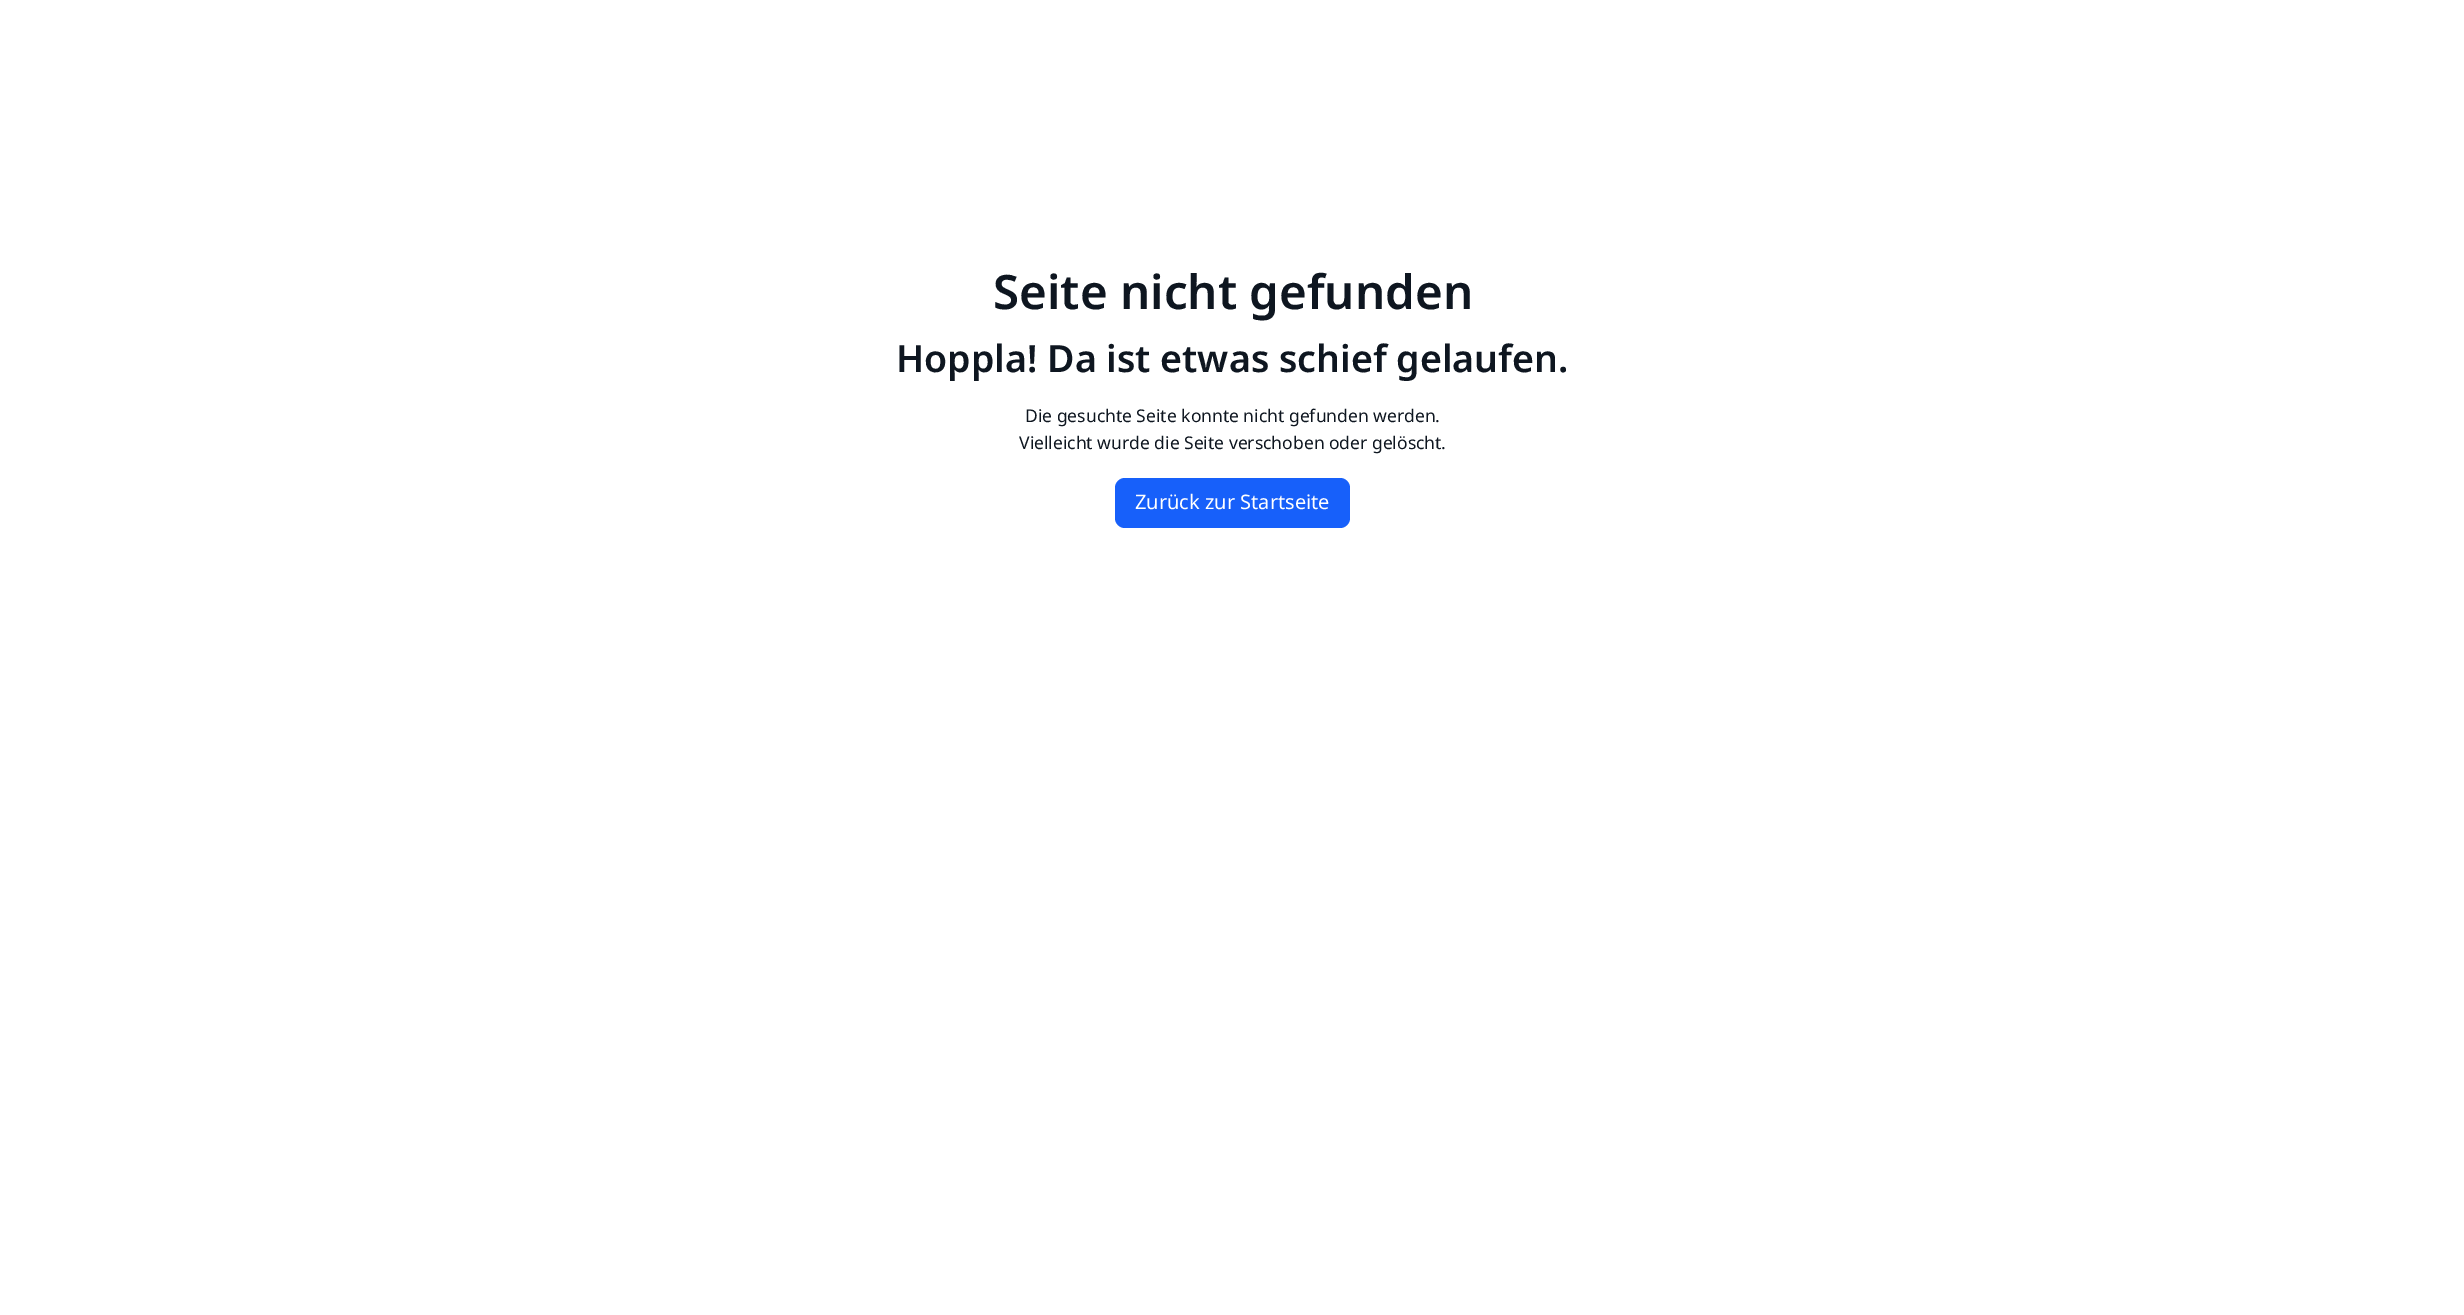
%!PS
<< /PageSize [2464 1315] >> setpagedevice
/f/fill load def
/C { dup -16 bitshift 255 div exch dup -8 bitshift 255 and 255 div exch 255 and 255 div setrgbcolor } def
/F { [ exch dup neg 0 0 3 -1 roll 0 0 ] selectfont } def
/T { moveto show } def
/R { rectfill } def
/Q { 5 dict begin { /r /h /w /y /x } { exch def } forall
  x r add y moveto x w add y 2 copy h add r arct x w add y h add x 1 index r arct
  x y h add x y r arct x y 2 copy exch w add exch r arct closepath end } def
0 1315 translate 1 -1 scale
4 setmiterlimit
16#FFFFFF C
0 0 2464 1315 R
/NotoSans-SemiBold 47.5 F
16#0E1620 C
(Seite nicht gefunden) 993 309 T
/NotoSans-SemiBold 37.5 F
(Hoppla! Da ist etwas schief gelaufen.) 896 372 T
/NotoSans-Regular 17.5 F
(Die gesuchte Seite konnte nicht gefunden werden.) 1025 422 T
(Vielleicht wurde die Seite verschoben oder gelöscht.) 1019 449 T
16#1760FA C
1115 478 235 50 10 Q f
/NotoSans-Regular 20 F
16#FFFFFF C
(Zurück zur Startseite) 1135 509 T
showpage
